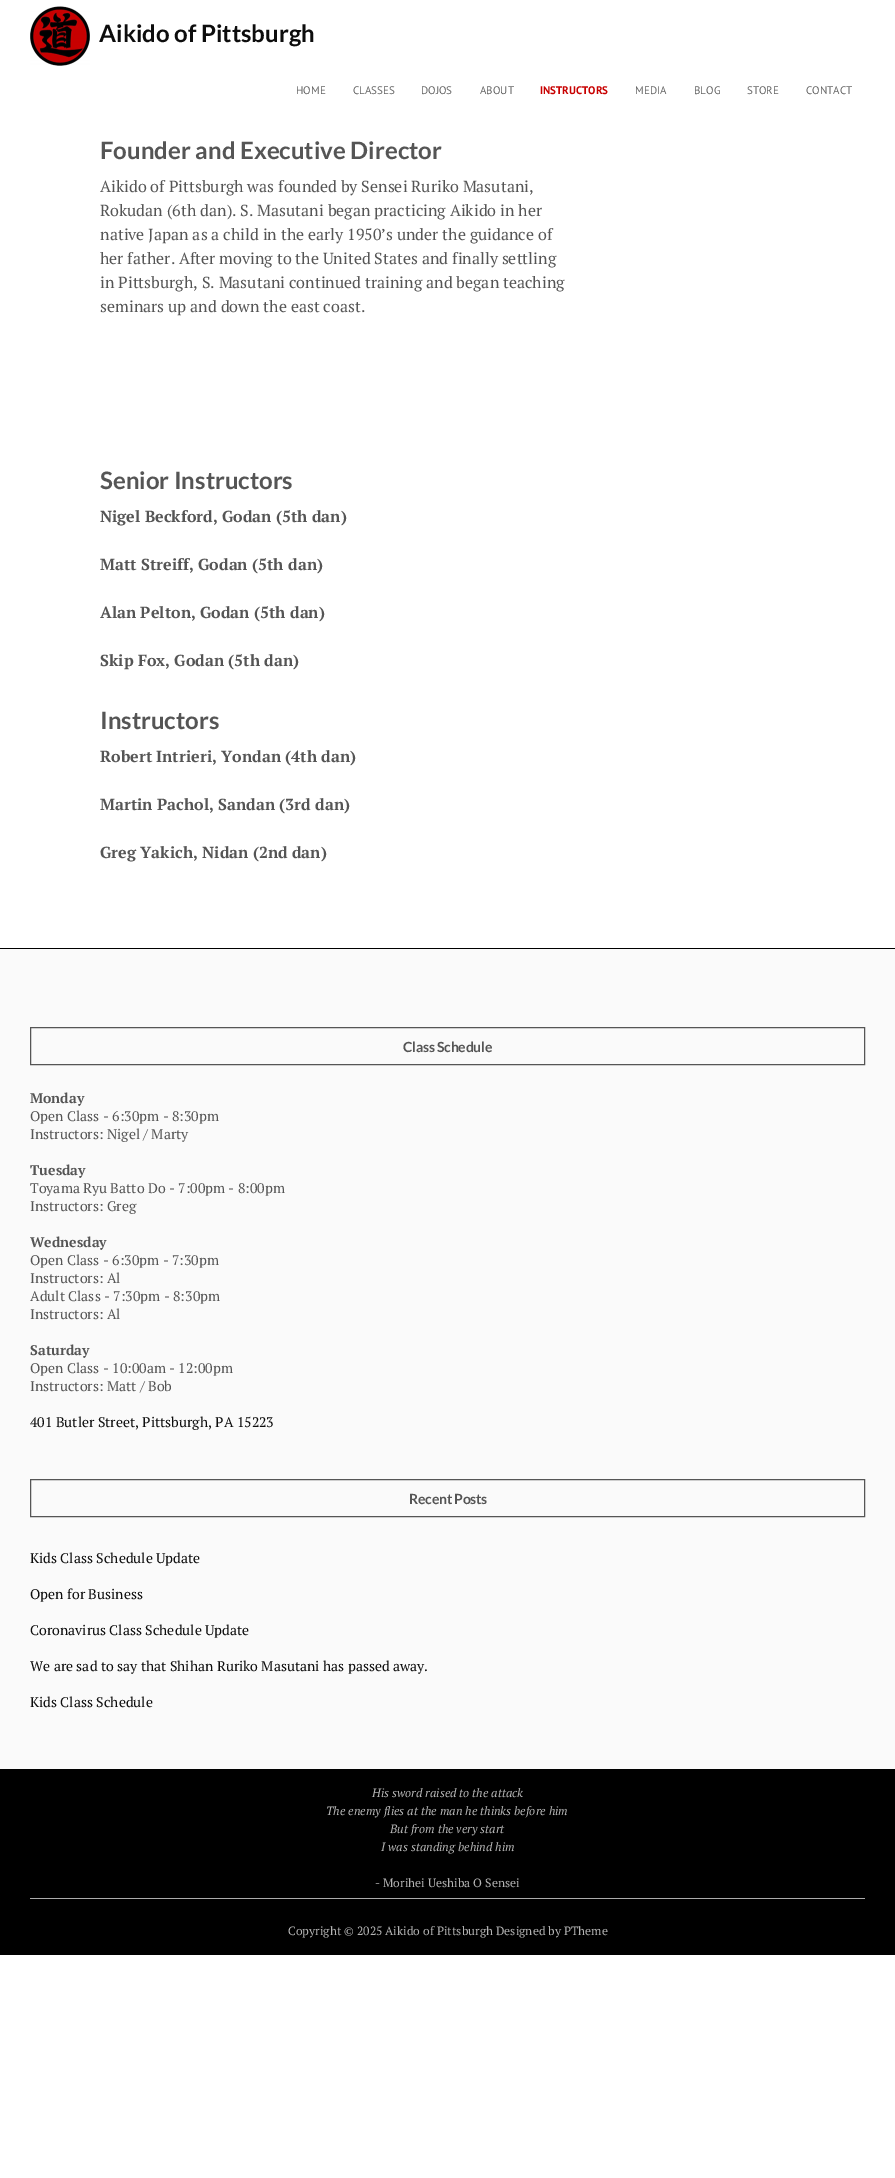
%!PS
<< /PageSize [895 2178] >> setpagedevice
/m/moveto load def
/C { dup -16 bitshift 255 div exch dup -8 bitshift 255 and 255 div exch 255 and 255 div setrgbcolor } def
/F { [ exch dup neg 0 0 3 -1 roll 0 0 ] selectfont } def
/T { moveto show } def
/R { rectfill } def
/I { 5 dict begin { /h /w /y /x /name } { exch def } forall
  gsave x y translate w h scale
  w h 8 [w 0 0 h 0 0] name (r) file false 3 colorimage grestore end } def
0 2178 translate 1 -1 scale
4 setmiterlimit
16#FFFFFF C
0 0 895 2178 R
(1.rgb) 30 6 60 60 I
/Lato-Bold 24 F
16#0D0D0D C
(Aikido of Pittsburgh) 99 42 T
/PTSans-Regular 11 F
16#666666 C
(HOME) 296 94 T
(CLASSES) 353 94 T
(DOJOS) 421 94 T
(ABOUT) 480 94 T
/PTSans-Bold 11 F
16#C80000 C
(INSTRUCTORS) 540 94 T
/PTSans-Regular 11 F
16#666666 C
(MEDIA) 635 94 T
(BLOG) 694 94 T
(STORE) 747 94 T
(CONTACT) 806 94 T
/Lato-Bold 24 F
16#555555 C
(Founder and Executive Director) 100 159 T
/PTSerif-Regular 16 F
(Aikido of Pittsburgh was founded by Sensei Ruriko Masutani,) 100 192 T
(Rokudan \(6th dan\). S. Masutani began practicing Aikido in her) 100 216 T
(native Japan as a child in the early 1950’s under the guidance of) 100 240 T
(her father. After moving to the United States and finally settling) 100 264 T
(in Pittsburgh, S. Masutani continued training and began teaching) 100 288 T
(seminars up and down the east coast.) 100 312 T
/Lato-Bold 24 F
(Senior Instructors) 100 489 T
/PTSerif-Bold 16 F
(Nigel Beckford, Godan \(5th dan\)) 100 522 T
(Matt Streiff, Godan \(5th dan\)) 100 570 T
(Alan Pelton, Godan \(5th dan\)) 100 618 T
(Skip Fox, Godan \(5th dan\)) 100 666 T
/Lato-Bold 24 F
(Instructors) 100 729 T
/PTSerif-Bold 16 F
(Robert Intrieri, Yondan \(4th dan\)) 100 762 T
(Martin Pachol, Sandan \(3rd dan\)) 100 810 T
(Greg Yakich, Nidan \(2nd dan\)) 100 858 T
16#FAFAFA C
0 949 895 820 R
16#000000 C
0 948 895 1 R
16#555555 C
30.5 1027.5 834 37 rectstroke
/Lato-Bold 14 F
403 1052 m -.25 0 (Class Schedule) ashow
/PTSerif-Bold 14 F
(Monday) 30 1103 T
/PTSerif-Regular 14 F
(Open Class - 6:30pm - 8:30pm) 30 1121 T
(Instructors: Nigel / Marty) 30 1139 T
/PTSerif-Bold 14 F
(Tuesday) 30 1175 T
/PTSerif-Regular 14 F
(Toyama Ryu Batto Do - 7:00pm - 8:00pm) 30 1193 T
(Instructors: Greg) 30 1211 T
/PTSerif-Bold 14 F
(Wednesday) 30 1247 T
/PTSerif-Regular 14 F
(Open Class - 6:30pm - 7:30pm) 30 1265 T
(Instructors: Al) 30 1283 T
(Adult Class - 7:30pm - 8:30pm) 30 1301 T
(Instructors: Al) 30 1319 T
/PTSerif-Bold 14 F
(Saturday) 30 1355 T
/PTSerif-Regular 14 F
(Open Class - 10:00am - 12:00pm) 30 1373 T
(Instructors: Matt / Bob) 30 1391 T
16#0D0D0D C
(401 Butler Street, Pittsburgh, PA 15223) 30 1427 T
16#555555 C
30.5 1479.5 834 37 rectstroke
/Lato-Bold 14 F
409 1504 m -.25 0 (Recent Posts) ashow
/PTSerif-Regular 14 F
16#0D0D0D C
(Kids Class Schedule Update) 30 1563 T
(Open for Business) 30 1599 T
(Coronavirus Class Schedule Update) 30 1635 T
(We are sad to say that Shihan Ruriko Masutani has passed away.) 30 1671 T
(Kids Class Schedule) 30 1707 T
16#000000 C
0 1769 895 186 R
/PTSerif-Italic 12 F
16#B3B3B3 C
(His sword raised to the attack) 372 1797 T
(The enemy flies at the man he thinks before him) 326 1815 T
(But from the very start) 390 1833 T
(I was standing behind him) 381 1851 T
/PTSerif-Regular 12 F
(- Morihei Ueshiba O Sensei) 375 1887 T
16#AAAAAA C
30 1898 835 1 R
16#B3B3B3 C
(Copyright © 2025 Aikido of Pittsburgh Designed by PTheme) 288 1935 T
showpage
